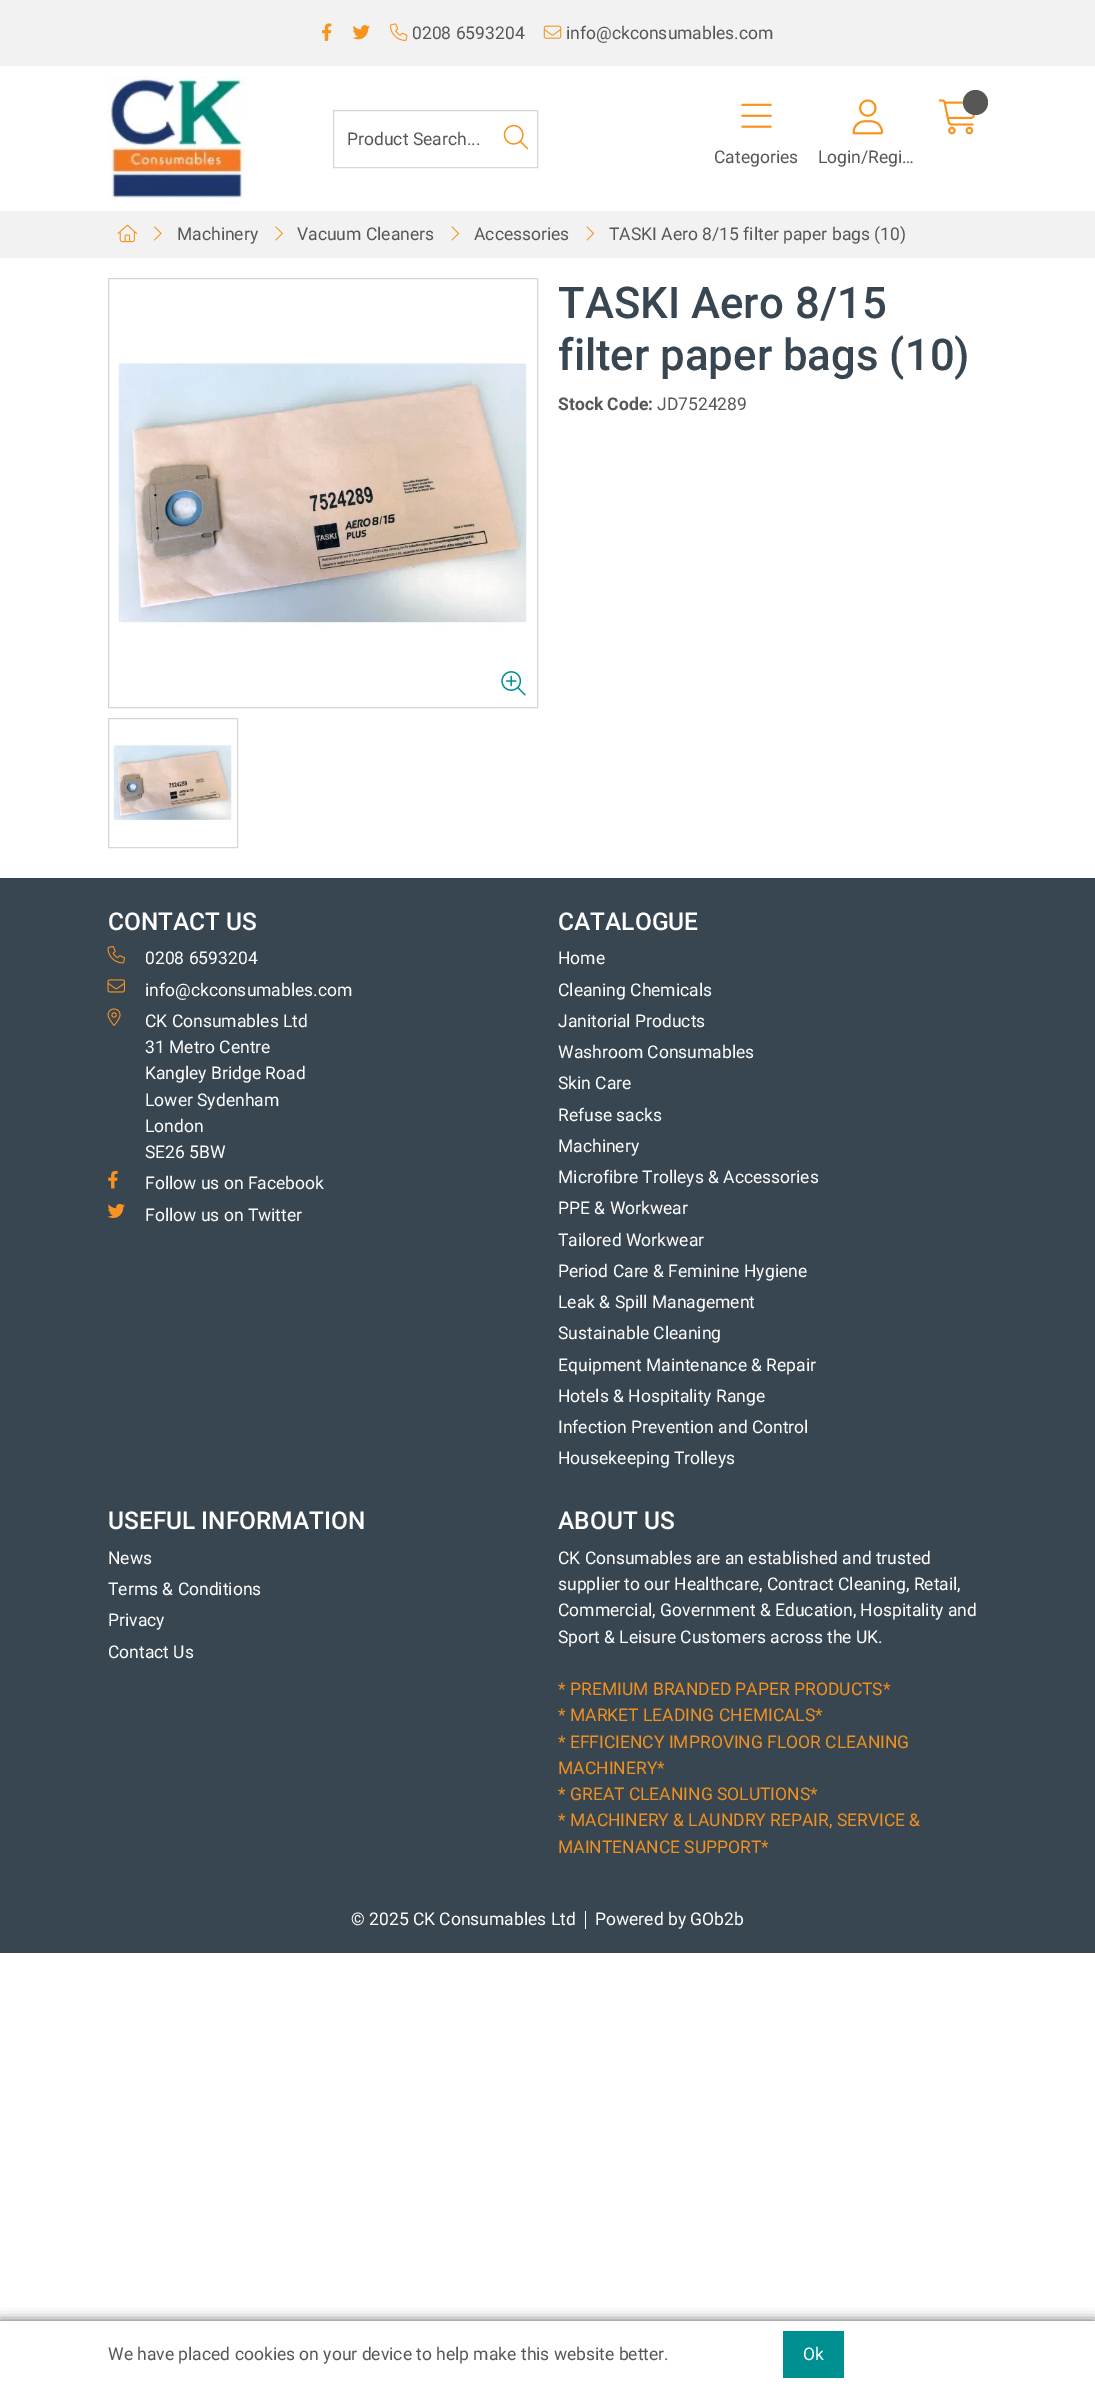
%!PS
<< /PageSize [1095 2387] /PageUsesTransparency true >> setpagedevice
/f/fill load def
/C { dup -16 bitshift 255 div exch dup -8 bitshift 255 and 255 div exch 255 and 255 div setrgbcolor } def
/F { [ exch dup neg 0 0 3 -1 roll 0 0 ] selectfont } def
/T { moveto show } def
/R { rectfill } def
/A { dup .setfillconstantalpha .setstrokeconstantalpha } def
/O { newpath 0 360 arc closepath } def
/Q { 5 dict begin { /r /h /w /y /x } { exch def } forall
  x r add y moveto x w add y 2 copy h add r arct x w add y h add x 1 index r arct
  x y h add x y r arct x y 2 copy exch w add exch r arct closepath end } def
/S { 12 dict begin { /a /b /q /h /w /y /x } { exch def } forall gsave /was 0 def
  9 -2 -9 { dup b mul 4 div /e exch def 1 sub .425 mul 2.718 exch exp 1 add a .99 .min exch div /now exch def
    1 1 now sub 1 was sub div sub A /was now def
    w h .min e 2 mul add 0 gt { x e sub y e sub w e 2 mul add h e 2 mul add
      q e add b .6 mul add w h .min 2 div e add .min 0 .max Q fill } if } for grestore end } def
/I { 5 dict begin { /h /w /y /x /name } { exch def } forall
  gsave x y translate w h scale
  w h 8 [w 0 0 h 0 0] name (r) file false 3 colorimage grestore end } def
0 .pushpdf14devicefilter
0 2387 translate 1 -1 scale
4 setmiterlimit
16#FFFFFF C
0 0 1095 2387 R
16#F2F2F2 C
0 0 1095 66 R
(1.rgb) 322 23 10 18 I
(2.rgb) 352 25 18 15 I
(3.rgb) 390 23 18 18 I
/Roboto-Regular 17.5 F
16#575756 C
(0208 6593204) 412 39 T
(4.rgb) 543 25 19 14 I
(info@ckconsumables.com) 566 39 T
(5.rgb) 107 76 139 125 I
16#D6D6D6 C
333.5 110.5 204 57 rectstroke
16#575756 C
(Product Search...) 347 145 T
(6.rgb) 503 124 26 26 I
(7.rgb) 938 99 38 36 I
975.5 102.5 12.5 O f
(8.rgb) 741 103 31 25 I
(Categories) 714 163 T
(9.rgb) 852 99 32 36 I
(Login/Regi…) 818 163 T
16#F2F2F2 C
0 211 1095 47 R
(10.rgb) 117 224 21 19 I
(11.rgb) 154 226 8 15 I
16#575756 C
(Machinery) 177 240 T
(12.rgb) 275 226 8 15 I
(Vacuum Cleaners) 297 240 T
(13.rgb) 451 226 9 15 I
(Accessories) 474 240 T
(13.rgb) 586 226 9 15 I
(TASKI Aero 8/15 filter paper bags \(10\)) 609 240 T
16#D6D6D6 C
108.5 278.5 429 429 rectstroke
(14.rgb) 118 361 409 265 I
(15.rgb) 501 671 25 25 I
108.5 718.5 129 129 rectstroke
(16.rgb) 113 744 119 78 I
/Roboto-Medium 43.75 F
16#384651 C
(TASKI Aero 8/15) 558 318 T
(filter paper bags \(10\)) 558 370 T
/Roboto-Bold 17.5 F
16#575756 C
(Stock Code:) 558 410 T
/Roboto-Regular 17.5 F
(JD7524289) 657 410 T
16#384651 C
0 878 1095 1075 R
/Roboto-Medium 24.5 F
16#FFFFFF C
(CONTACT US) 108 930 T
(17.rgb) 107 945 18 19 I
/Roboto-Regular 17.5 F
(0208 6593204) 145 964 T
(18.rgb) 107 979 18 14 I
(info@ckconsumables.com) 145 996 T
(19.rgb) 107 1008 14 18 I
(CK Consumables Ltd) 145 1027 T
(31 Metro Centre) 145 1053 T
(Kangley Bridge Road) 145 1079 T
(Lower Sydenham) 145 1106 T
(London) 145 1132 T
(SE26 5BW) 145 1158 T
(20.rgb) 108 1170 10 19 I
(Follow us on Facebook) 145 1189 T
(21.rgb) 107 1203 18 15 I
(Follow us on Twitter) 145 1221 T
/Roboto-Medium 24.5 F
(CATALOGUE) 558 930 T
/Roboto-Regular 17.5 F
(Home) 558 964 T
(Cleaning Chemicals) 558 996 T
(Janitorial Products) 558 1027 T
(Washroom Consumables) 558 1058 T
(Skin Care) 558 1089 T
(Refuse sacks) 558 1121 T
(Machinery) 558 1152 T
(Microfibre Trolleys & Accessories) 558 1183 T
(PPE & Workwear) 558 1214 T
(Tailored Workwear) 558 1246 T
(Period Care & Feminine Hygiene) 558 1277 T
(Leak & Spill Management) 558 1308 T
(Sustainable Cleaning) 558 1339 T
(Equipment Maintenance & Repair) 558 1371 T
(Hotels & Hospitality Range) 558 1402 T
(Infection Prevention and Control) 558 1433 T
(Housekeeping Trolleys) 558 1464 T
/Roboto-Medium 24.5 F
(USEFUL INFORMATION) 108 1529 T
/Roboto-Regular 17.5 F
(News) 108 1564 T
(Terms & Conditions) 108 1595 T
(Privacy) 108 1626 T
(Contact Us) 108 1658 T
/Roboto-Medium 24.5 F
(ABOUT US) 558 1529 T
/Roboto-Regular 17.5 F
(CK Consumables are an established and trusted) 558 1564 T
(supplier to our Healthcare, Contract Cleaning, Retail,) 558 1590 T
(Commercial, Government & Education, Hospitality and) 558 1616 T
(Sport & Leisure Customers across the UK.) 558 1643 T
16#EF9020 C
(* PREMIUM BRANDED PAPER PRODUCTS*) 558 1695 T
(* MARKET LEADING CHEMICALS*) 558 1721 T
(* EFFICIENCY IMPROVING FLOOR CLEANING) 558 1748 T
(MACHINERY*) 558 1774 T
(* GREAT CLEANING SOLUTIONS*) 558 1800 T
(* MACHINERY & LAUNDRY REPAIR, SERVICE &) 558 1826 T
(MAINTENANCE SUPPORT*) 558 1853 T
16#FFFFFF C
(© 2025 CK Consumables Ltd) 351 1925 T
585 1911 1 18 R
(Powered by GOb2b) 595 1925 T
16#575756 C
0 2321 1095 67 0 6 1 S
16#FFFFFF C
0 2321 1095 66 R
16#575756 C
(We have placed cookies on your device to help make this website better.) 108 2360 T
16#008F90 C
783 2331 61 47 R
16#FFFFFF C
(Ok) 803 2360 T
.poppdf14devicefilter showpage
